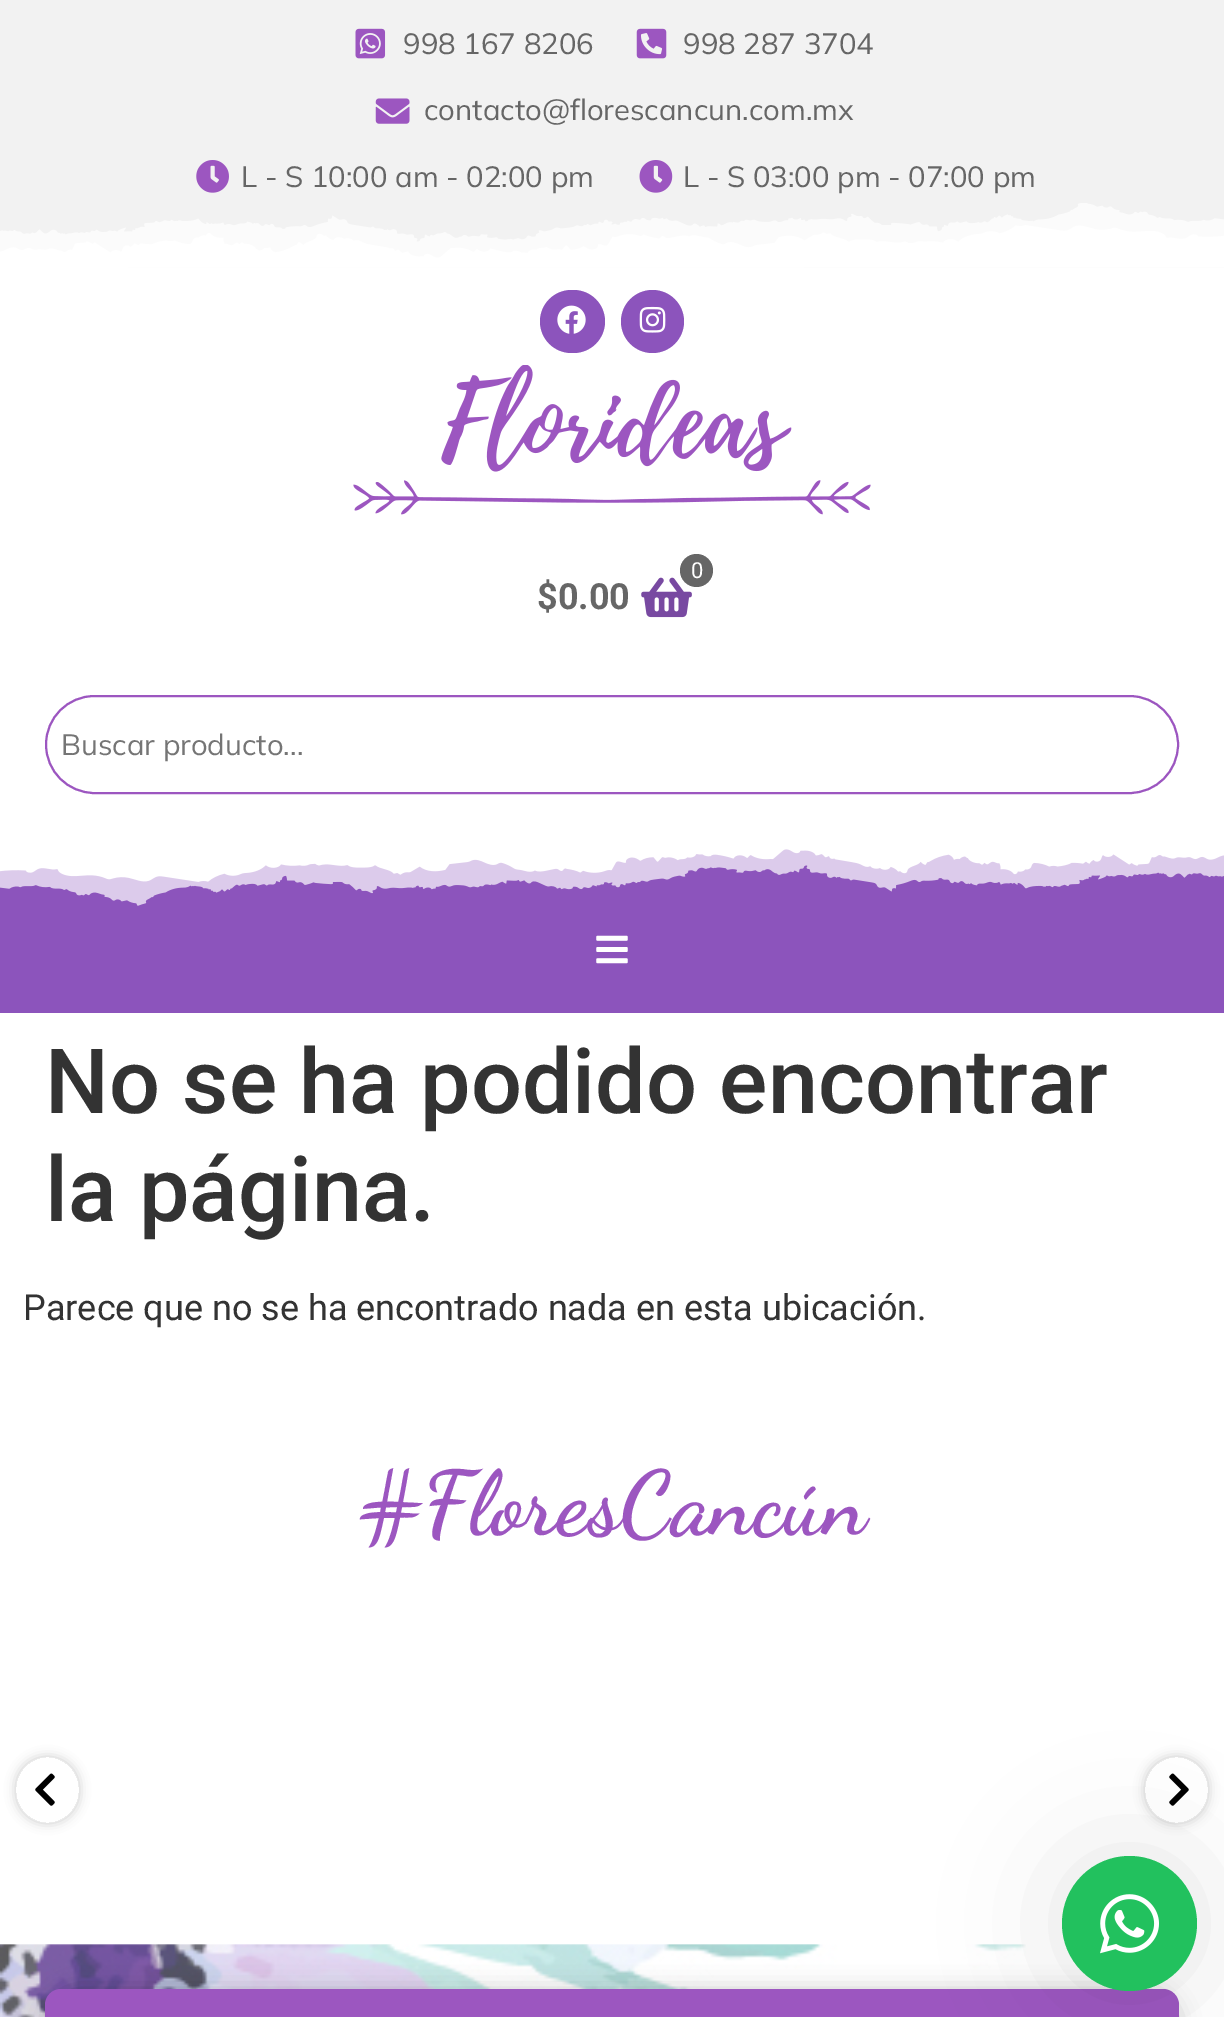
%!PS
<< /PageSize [1224 2017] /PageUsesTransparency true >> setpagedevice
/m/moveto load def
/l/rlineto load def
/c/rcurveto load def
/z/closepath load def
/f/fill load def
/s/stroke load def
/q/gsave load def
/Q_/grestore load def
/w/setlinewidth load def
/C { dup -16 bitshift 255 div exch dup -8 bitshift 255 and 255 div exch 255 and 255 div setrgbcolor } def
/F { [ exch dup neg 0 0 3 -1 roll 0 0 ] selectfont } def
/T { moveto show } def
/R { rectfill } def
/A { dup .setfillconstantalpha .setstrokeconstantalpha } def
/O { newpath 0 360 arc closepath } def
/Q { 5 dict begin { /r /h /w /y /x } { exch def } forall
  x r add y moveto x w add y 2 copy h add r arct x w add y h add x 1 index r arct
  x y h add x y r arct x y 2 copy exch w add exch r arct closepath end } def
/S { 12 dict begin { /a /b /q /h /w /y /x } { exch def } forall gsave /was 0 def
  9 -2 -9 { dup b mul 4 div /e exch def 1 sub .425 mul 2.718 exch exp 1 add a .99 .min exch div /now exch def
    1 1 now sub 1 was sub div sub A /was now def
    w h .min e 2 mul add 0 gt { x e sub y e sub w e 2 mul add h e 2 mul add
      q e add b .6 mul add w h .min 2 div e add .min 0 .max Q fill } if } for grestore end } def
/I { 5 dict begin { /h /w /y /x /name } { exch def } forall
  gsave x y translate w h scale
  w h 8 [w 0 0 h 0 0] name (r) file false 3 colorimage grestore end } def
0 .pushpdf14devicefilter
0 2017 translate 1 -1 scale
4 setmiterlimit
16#FFFFFF C
0 0 1224 2017 R
16#F2F2F2 C
0 0 1224 268 R
(1.rgb) 355 28 31 31 I
/Mulish-Regular 29.25 F
16#666666 C
(998 167 8206) 403 54 T
(2.rgb) 636 28 31 31 I
(998 287 3704) 683 54 T
(3.rgb) 375 98 35 26 I
(contacto@florescancun.com.mx) 424 120 T
(4.rgb) 196 160 33 33 I
(L - S 10:00 am - 02:00 pm) 241 187 T
(5.rgb) 639 160 34 33 I
(L - S 03:00 pm - 07:00 pm) 683 187 T
(6.rgb) 0 203 1224 65 I
16#8C54BC C
540 290 65 63 31.5 Q f
(7.rgb) 557 305 29 29 I
652.5 321.5 31.5 O f
(8.rgb) 639 306 27 27 I
(9.rgb) 353 365 518 150 I
(10.rgb) 641 577 51 41 I
16#666666 C
696.5 570.5 16.5 O f
/Roboto-Regular 22 F
16#FFFFFF C
(0) 691 578 T
/Roboto-Bold 36 F
16#666666 C
($0.00) 537 609 T
16#9C56C0 C
2 w
46 696 1132 97 48.5 Q s
/Mulish-Regular 29.25 F
16#757575 C
(Buscar producto...) 61 755 T
16#8C54BC C
0 849 1224 164 R
(11.rgb) 0 842 1224 64 I
(12.rgb) 596 935 32 29 I
/Roboto-Medium 90 F
16#333333 C
(No se ha podido encontrar) 45 1113 T
(la página.) 45 1221 T
/Roboto-Regular 36 F
(Parece que no se ha encontrado nada en esta ubicación.) 23 1320 T
/DancingScript-Bold 90 F
16#9C56C0 C
(#FloresCancún) 358 1533 T
q
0 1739 m 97 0 l 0 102 l -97 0 l z 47.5 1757 m 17.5 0 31.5 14 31.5 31.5 c 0 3 l 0 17.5 -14 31.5 -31.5 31.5 c -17.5 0 -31.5 -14 -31.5 -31.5 c 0 -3 l 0 -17.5 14 -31.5 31.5 -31.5 c z eoclip newpath
16#000000 C
16 1757 63 66 31.5 5.5 .2 S
Q_
0.3 A
16#FFFFFF C
16 1757 63 66 31.5 Q f
1 A
(13.rgb) 35 1773 20 33 I
q
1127 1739 m 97 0 l 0 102 l -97 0 l z 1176.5 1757 m 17.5 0 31.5 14 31.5 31.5 c 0 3 l 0 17.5 -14 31.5 -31.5 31.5 c -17.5 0 -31.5 -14 -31.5 -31.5 c 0 -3 l 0 -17.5 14 -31.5 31.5 -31.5 c z eoclip newpath
16#000000 C
1145 1757 63 66 31.5 5.5 .2 S
Q_
0.3 A
1145 1757 63 66 31.5 Q f
1 A
(14.rgb) 1169 1773 20 33 I
(15.rgb) 0 1944 1026 73 I
16#000000 C
45 1989 1134 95 34 11 .2 S
16#9C56C0 C
45 1989 1134 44 16 Q f
16#000000 C
1062 1856 135 135 67.5 56 .1 S
16#22C15E C
1129.5 1923.5 67.5 O f
(16.rgb) 1100 1894 59 60 I
.poppdf14devicefilter showpage
